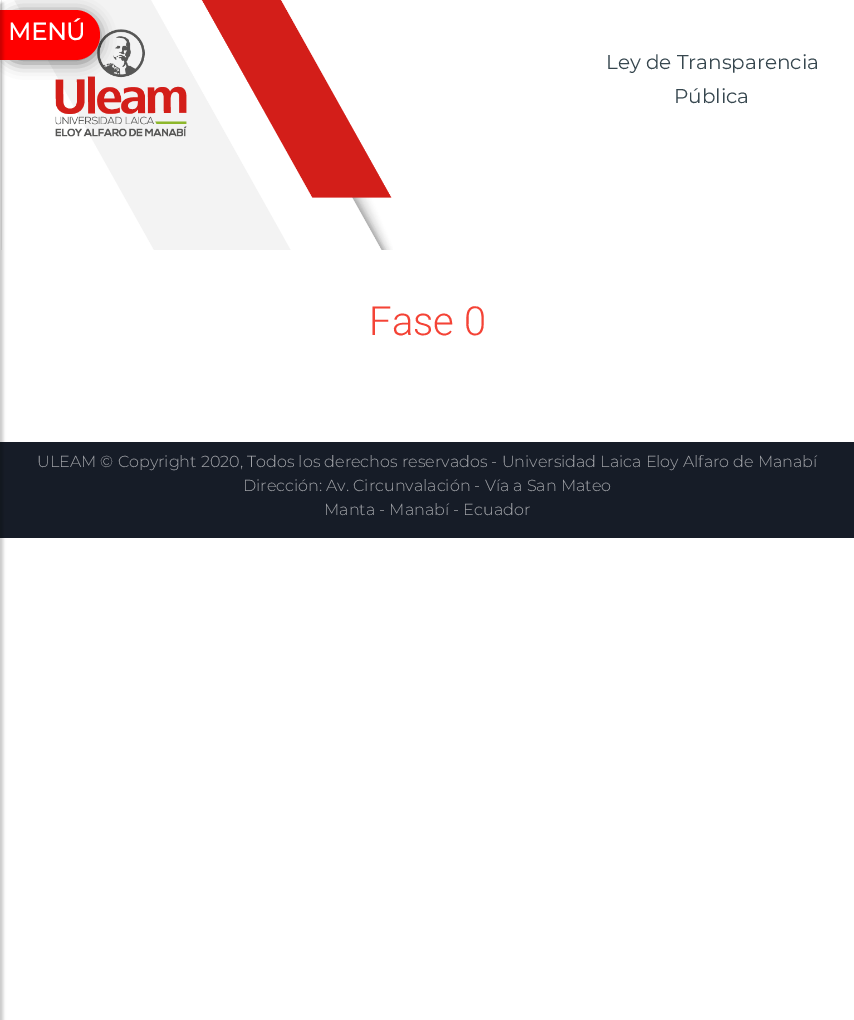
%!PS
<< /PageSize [854 1020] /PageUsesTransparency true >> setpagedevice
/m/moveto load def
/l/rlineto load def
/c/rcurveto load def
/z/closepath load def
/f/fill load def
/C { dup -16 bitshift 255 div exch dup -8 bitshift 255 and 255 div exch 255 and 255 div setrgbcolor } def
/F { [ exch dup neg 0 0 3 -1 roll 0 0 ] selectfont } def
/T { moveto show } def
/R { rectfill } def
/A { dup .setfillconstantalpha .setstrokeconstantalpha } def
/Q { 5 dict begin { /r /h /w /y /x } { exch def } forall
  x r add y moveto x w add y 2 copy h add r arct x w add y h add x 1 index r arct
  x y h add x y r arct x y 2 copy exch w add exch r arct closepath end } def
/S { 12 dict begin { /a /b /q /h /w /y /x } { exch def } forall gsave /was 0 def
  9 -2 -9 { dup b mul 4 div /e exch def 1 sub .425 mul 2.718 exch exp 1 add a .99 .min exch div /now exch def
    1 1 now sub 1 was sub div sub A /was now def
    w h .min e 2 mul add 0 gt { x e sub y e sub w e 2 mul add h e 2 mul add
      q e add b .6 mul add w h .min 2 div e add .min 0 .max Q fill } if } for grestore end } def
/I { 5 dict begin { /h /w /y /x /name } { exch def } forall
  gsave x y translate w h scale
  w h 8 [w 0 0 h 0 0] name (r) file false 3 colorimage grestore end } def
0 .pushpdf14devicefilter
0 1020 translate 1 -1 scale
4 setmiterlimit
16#FFFFFF C
0 0 854 1020 R
(1.rgb) 1 0 392 250 I
16#000000 C
0 13 100 50 25 7.5 .5 S
16#FF0000 C
0 10 m 75 0 l 14 0 25 11 25 25 c 0 14 -11 25 -25 25 c -75 0 l z f
16#161C27 C
0 442 854 96 R
16#000000 C
-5 3 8 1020 0 1.5 .2 S
/Montserrat-Bold 24 F
16#FFFFFF C
(MENÚ) 8 40 T
/Montserrat-Regular 20 F
16#37474F C
(Ley de Transparencia) 606 69 T
(Pública) 674 103 T
/Roboto-Light 40 F
16#F44336 C
(Fase 0) 369 335 T
/Montserrat-Light 16 F
16#A2A4A9 C
(ULEAM © Copyright 2020, Todos los derechos reservados - Universidad Laica Eloy Alfaro de Manabí) 37 467 T
(Dirección: Av. Circunvalación - Vía a San Mateo) 243 491 T
(Manta - Manabí - Ecuador) 324 515 T
.poppdf14devicefilter showpage
